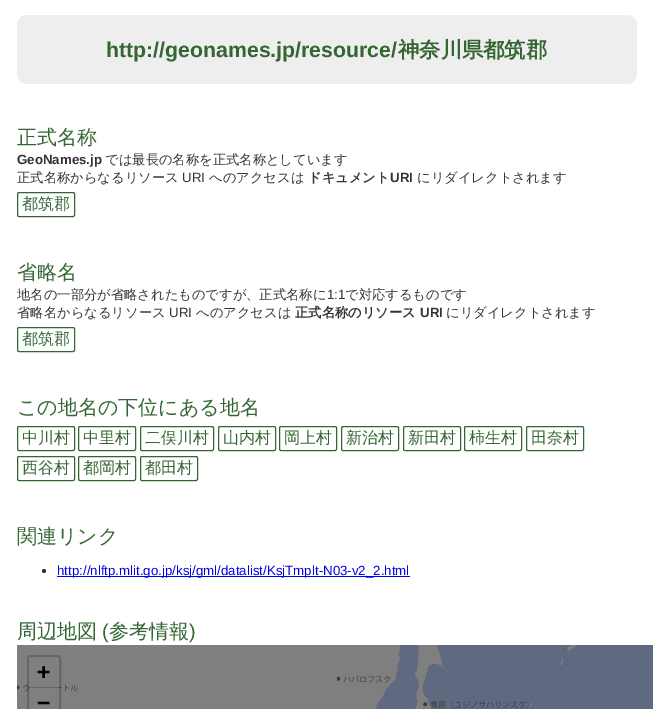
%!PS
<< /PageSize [653 709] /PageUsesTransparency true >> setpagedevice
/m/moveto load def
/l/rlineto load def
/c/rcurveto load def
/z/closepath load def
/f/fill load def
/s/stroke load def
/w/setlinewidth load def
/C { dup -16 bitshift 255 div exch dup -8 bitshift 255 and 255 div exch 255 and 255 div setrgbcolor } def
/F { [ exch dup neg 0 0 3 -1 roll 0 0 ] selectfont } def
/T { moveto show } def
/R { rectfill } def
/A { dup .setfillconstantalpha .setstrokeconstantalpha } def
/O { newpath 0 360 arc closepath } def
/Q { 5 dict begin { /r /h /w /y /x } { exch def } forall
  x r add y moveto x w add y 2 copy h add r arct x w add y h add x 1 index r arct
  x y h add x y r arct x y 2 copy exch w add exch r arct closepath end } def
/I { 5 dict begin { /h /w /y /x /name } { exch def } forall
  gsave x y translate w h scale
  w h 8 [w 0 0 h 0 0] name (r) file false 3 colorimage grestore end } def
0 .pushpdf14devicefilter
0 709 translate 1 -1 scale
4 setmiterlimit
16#FFFFFF C
0 0 653 709 R
16#EEEEEE C
17 15 620 69 10 Q f
/LiberationSans-Bold 21.3 F
16#336633 C
(http://geonames.jp/resource/) 106 57 T
/WenQuanYiZenHei-Bold 21.3 F
(神奈川県都筑郡) 398 57 T
/WenQuanYiZenHei-Medium 20 F
(正式名称) 17 144 T
/LiberationSans-Bold 13.3 F
16#333333 C
(GeoNames.jp) 17 164 T
/WenQuanYiZenHei-Medium 13.3 F
(では最長の名称を正式名称としています) 105 164 T
(正式名称からなるリソース) 17 182 T
/LiberationSans-Regular 13.3 F
(URI) 182 182 T
/WenQuanYiZenHei-Medium 13.3 F
(へのアクセスは) 209 182 T
/WenQuanYiZenHei-Bold 13.3 F
(ドキュメント) 308 182 T
/LiberationSans-Bold 13.3 F
(URI) 390 182 T
/WenQuanYiZenHei-Medium 13.3 F
(にリダイレクトされます) 417 182 T
16#336633 C
17.5 192.5 57 24 1.5 Q s
/WenQuanYiZenHei-Medium 16 F
(都筑郡) 22 209 T
/WenQuanYiZenHei-Medium 20 F
(省略名) 17 279 T
/WenQuanYiZenHei-Medium 13.3 F
16#333333 C
(地名の一部分が省略されたものですが、正式名称に) 17 299 T
/LiberationSans-Regular 13.3 F
(1:1) 327 299 T
/WenQuanYiZenHei-Medium 13.3 F
(で対応するものです) 345 299 T
(省略名からなるリソース) 17 317 T
/LiberationSans-Regular 13.3 F
(URI) 169 317 T
/WenQuanYiZenHei-Medium 13.3 F
(へのアクセスは) 196 317 T
/WenQuanYiZenHei-Bold 13.3 F
(正式名称のリソース) 295 317 T
/LiberationSans-Bold 13.3 F
(URI) 420 317 T
/WenQuanYiZenHei-Medium 13.3 F
(にリダイレクトされます) 446 317 T
16#336633 C
17.5 327.5 57 24 1.5 Q s
/WenQuanYiZenHei-Medium 16 F
(都筑郡) 22 344 T
/WenQuanYiZenHei-Medium 20 F
(この地名の下位にある地名) 17 414 T
17.5 426.5 57 24 1.5 Q s
/WenQuanYiZenHei-Medium 16 F
(中川村) 22 443 T
78.5 426.5 57 24 1.5 Q s
(中里村) 83 443 T
140.5 426.5 73 24 1.5 Q s
(二俣川村) 145 443 T
218.5 426.5 57 24 1.5 Q s
(山内村) 223 443 T
279.5 426.5 57 24 1.5 Q s
(岡上村) 284 443 T
341.5 426.5 57 24 1.5 Q s
(新治村) 346 443 T
403.5 426.5 57 24 1.5 Q s
(新田村) 408 443 T
464.5 426.5 57 24 1.5 Q s
(柿生村) 469 443 T
526.5 426.5 57 24 1.5 Q s
(田奈村) 531 443 T
17.5 456.5 57 24 1.5 Q s
(西谷村) 22 473 T
78.5 456.5 57 24 1.5 Q s
(都岡村) 83 473 T
140.5 456.5 57 24 1.5 Q s
(都田村) 145 473 T
/WenQuanYiZenHei-Medium 20 F
(関連リンク) 17 543 T
16#333333 C
44 571 2 O f
16#0000EE C
57 576 353 1 R
/LiberationSans-Regular 13.3 F
(http://nlftp.mlit.go.jp/ksj/gml/datalist/KsjTmplt-N03-v2_2.html) 57 575 T
/WenQuanYiZenHei-Medium 20 F
16#336633 C
(周辺地図) 17 638 T
/LiberationSans-Regular 20 F
(\() 102 638 T
/WenQuanYiZenHei-Medium 20 F
(参考情報) 109 638 T
/LiberationSans-Regular 20 F
(\)) 189 638 T
(1.rgb) 17 645 64 64 I
16#7F7F7F C
81 645 256 64 R
(2.rgb) 337 645 256 64 I
16#5F6980 C
593 645 60 64 R
0.2 A
16#000000 C
2 w
28 656 32 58 3 Q s
1 A
16#808080 C
31 657 m 26 0 l 1 0 2 1 2 2 c 0 29 l -30 0 l 0 -29 l 0 -1 1 -2 2 -2 c z f
16#666666 C
29 687 30 1 R
/DejaVuSansMono-Bold 22 F
16#000000 C
(+) 37 679 T
16#808080 C
32 688 24 4 R
16#000000 C
(−) 37 710 T
.poppdf14devicefilter showpage
